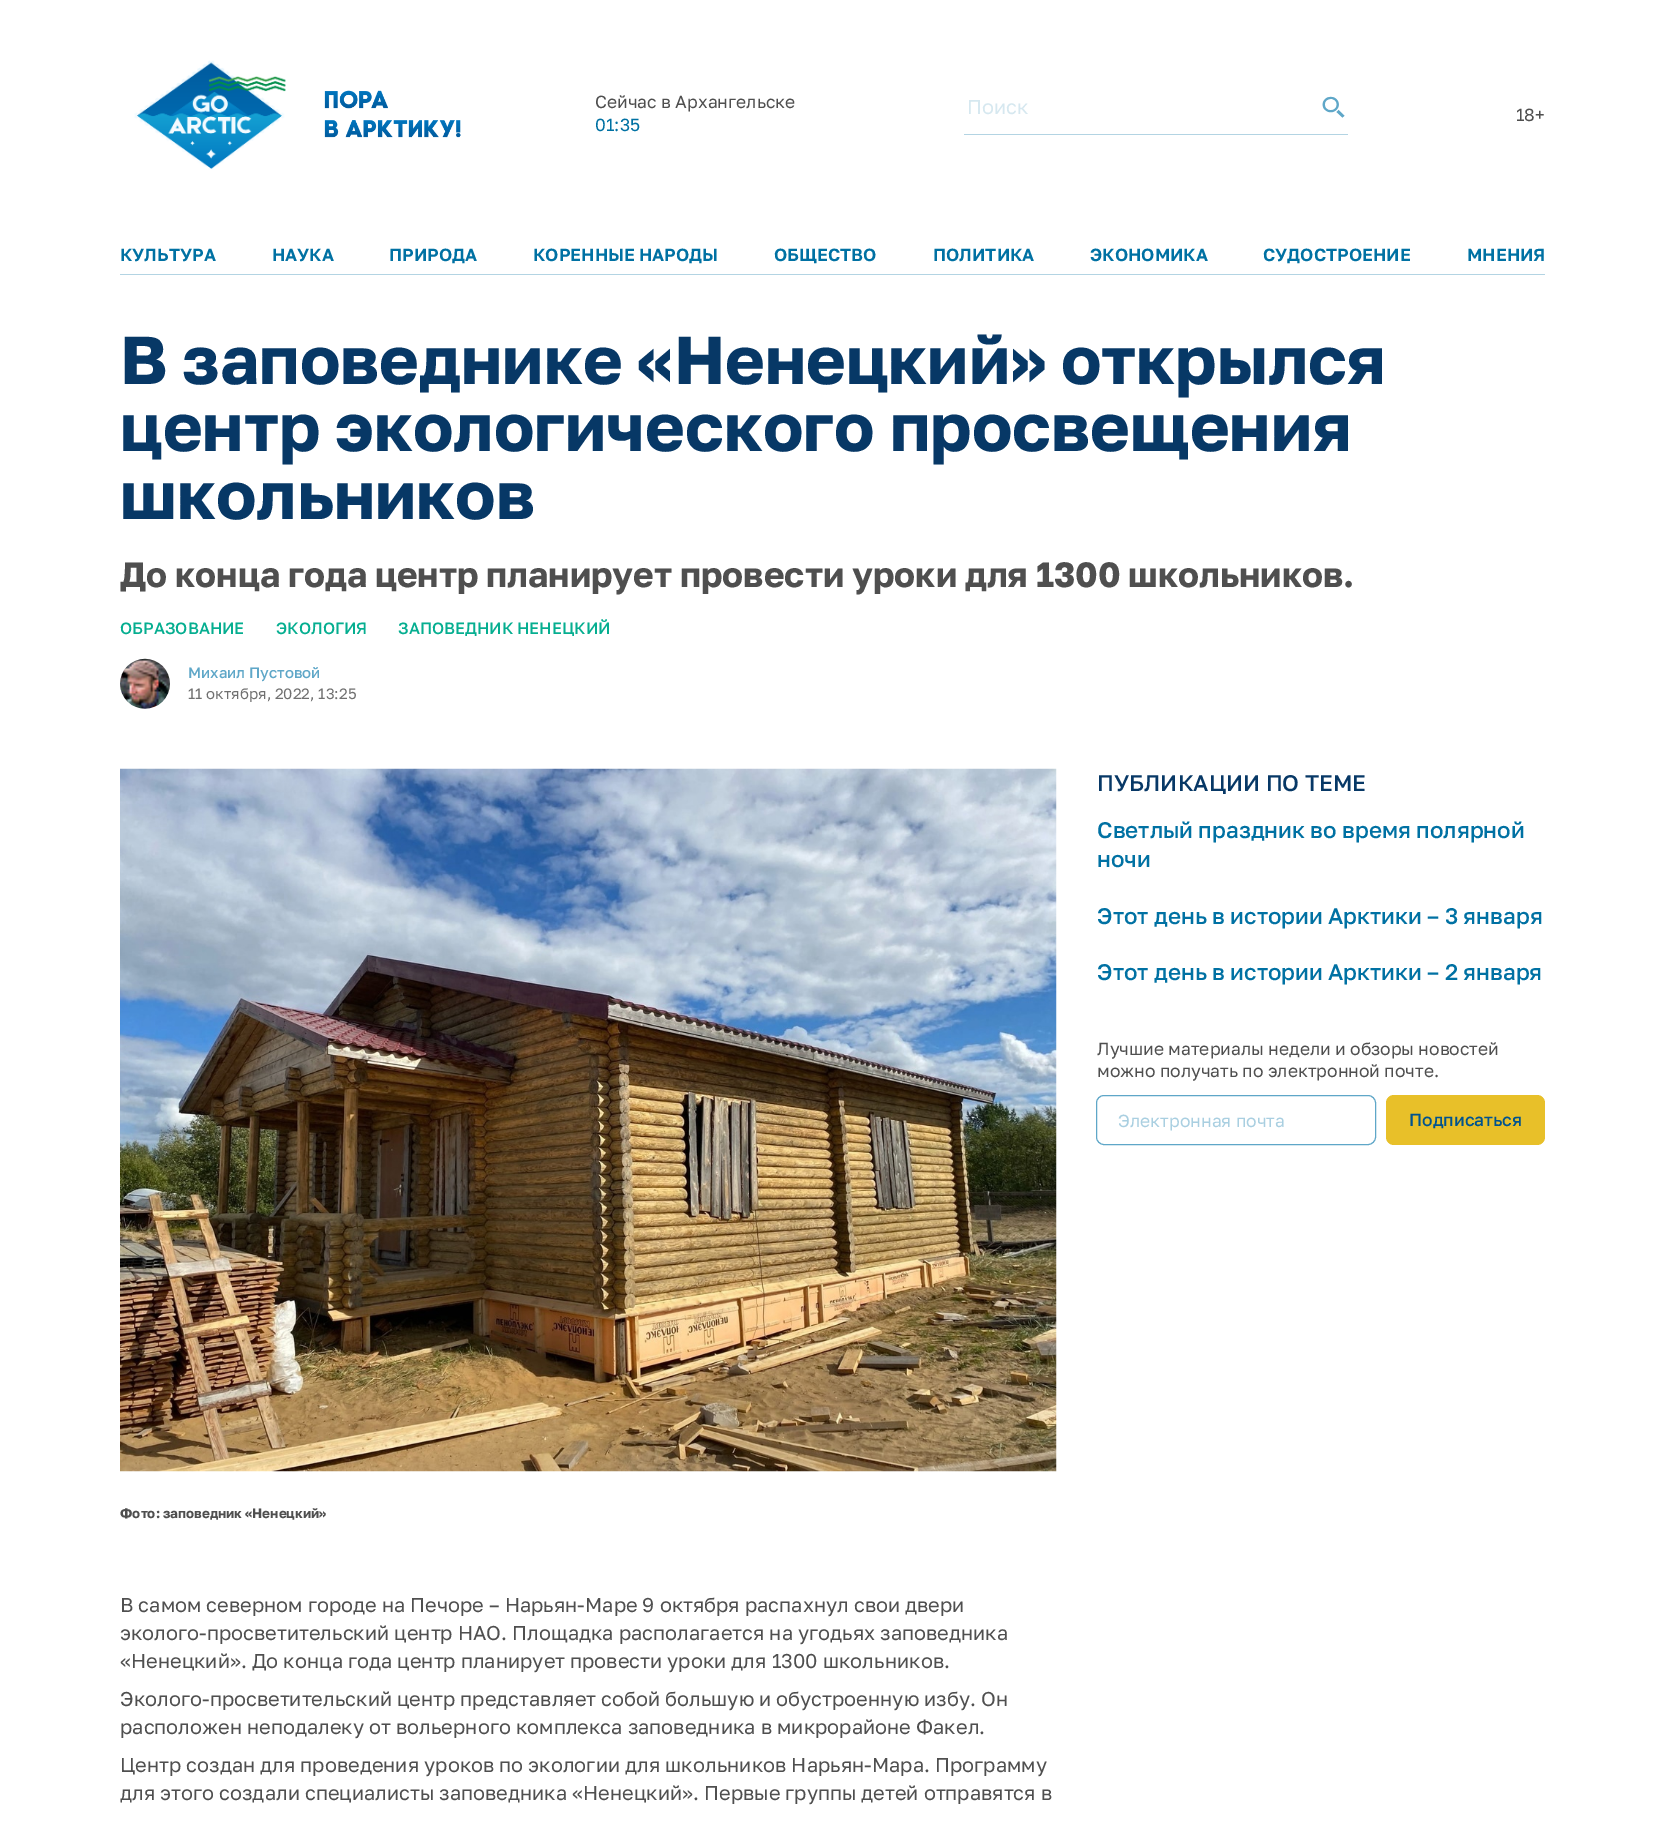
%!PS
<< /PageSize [1664 1823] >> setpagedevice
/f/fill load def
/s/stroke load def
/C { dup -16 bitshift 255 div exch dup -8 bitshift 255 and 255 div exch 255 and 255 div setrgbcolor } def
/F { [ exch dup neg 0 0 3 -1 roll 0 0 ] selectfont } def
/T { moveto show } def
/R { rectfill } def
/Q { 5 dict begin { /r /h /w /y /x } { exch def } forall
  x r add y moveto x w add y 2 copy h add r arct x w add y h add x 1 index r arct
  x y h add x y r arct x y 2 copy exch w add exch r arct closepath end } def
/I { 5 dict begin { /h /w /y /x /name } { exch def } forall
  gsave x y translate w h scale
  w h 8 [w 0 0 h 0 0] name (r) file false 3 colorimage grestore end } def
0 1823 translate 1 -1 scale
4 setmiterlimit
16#FFFFFF C
0 0 1664 1823 R
(1.rgb) 134 60 152 110 I
(2.rgb) 324 90 137 48 I
/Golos-Regular 17.5 F
16#4F4F4F C
(Сейчас в Архангельске) 595 108 T
16#0071A3 C
(01:35) 595 131 T
16#B3D4E3 C
964 134 384 1 R
/Golos-Regular 20 F
16#D6E8F0 C
(Поиск) 967 114 T
(3.rgb) 1322 96 23 22 I
/Golos-Regular 17.5 F
16#4F4F4F C
(18+) 1516 121 T
16#B3D4E3 C
120 274 1425 1 R
/Golos-SemiBold 17.5 F
16#0071A3 C
(КУЛЬТУРА) 120 261 T
(НАУКА) 272 261 T
(ПРИРОДА) 389 261 T
(КОРЕННЫЕ НАРОДЫ) 533 261 T
(ОБЩЕСТВО) 774 261 T
(ПОЛИТИКА) 933 261 T
(ЭКОНОМИКА) 1090 261 T
(СУДОСТРОЕНИЕ) 1263 261 T
(МНЕНИЯ) 1467 261 T
/Golos-Bold 67.5 F
16#073866 C
(В заповеднике «Ненецкий» открылся) 120 384 T
(центр экологического просвещения) 120 451 T
(школьников) 120 519 T
/Golos-Bold 35 F
16#4F4F4F C
(До конца года центр планирует провести уроки для 1300 школьников.) 120 587 T
/Golos-Medium 16.25 F
16#05AE90 C
(ОБРАЗОВАНИЕ) 120 634 T
(ЭКОЛОГИЯ) 276 634 T
(ЗАПОВЕДНИК НЕНЕЦКИЙ) 398 634 T
(4.rgb) 120 658 50 51 I
/Golos-Medium 15 F
16#5FA7C8 C
(Михаил Пустовой) 188 678 T
/Golos-Regular 15 F
16#707070 C
(11 октября, 2022, 13:25) 188 699 T
/Golos-Medium 22.5 F
16#073866 C
(ПУБЛИКАЦИИ ПО ТЕМЕ) 1097 791 T
16#0071A3 C
(Светлый праздник во время полярной) 1097 838 T
(ночи) 1097 867 T
(Этот день в истории Арктики – 3 января) 1097 924 T
(Этот день в истории Арктики – 2 января) 1097 980 T
/Golos-Regular 17.5 F
16#4F4F4F C
(Лучшие материалы недели и обзоры новостей) 1097 1055 T
(можно получать по электронной почте.) 1097 1077 T
16#5FA7C8 C
1096.5 1095.5 279 49 7.5 Q s
16#A9CFE1 C
(Электронная почта) 1118 1127 T
16#E8C029 C
1386 1095 159 50 8 Q f
/Golos-Medium 17.5 F
16#00538F C
(Подписаться) 1409 1126 T
(5.rgb) 120 768 937 704 I
/Golos-Bold 13.4 F
16#4F4F4F C
(Фото: заповедник «Ненецкий») 120 1518 T
/Golos-Regular 20 F
(В самом северном городе на Печоре – Нарьян-Маре 9 октября распахнул свои двери) 120 1612 T
(эколого-просветительский центр НАО. Площадка располагается на угодьях заповедника) 120 1640 T
(«Ненецкий». До конца года центр планирует провести уроки для 1300 школьников.) 120 1668 T
(Эколого-просветительский центр представляет собой большую и обустроенную избу. Он) 120 1706 T
(расположен неподалеку от вольерного комплекса заповедника в микрорайоне Факел.) 120 1734 T
(Центр создан для проведения уроков по экологии для школьников Нарьян-Мара. Программу) 120 1772 T
(для этого создали специалисты заповедника «Ненецкий». Первые группы детей отправятся в) 120 1800 T
showpage
